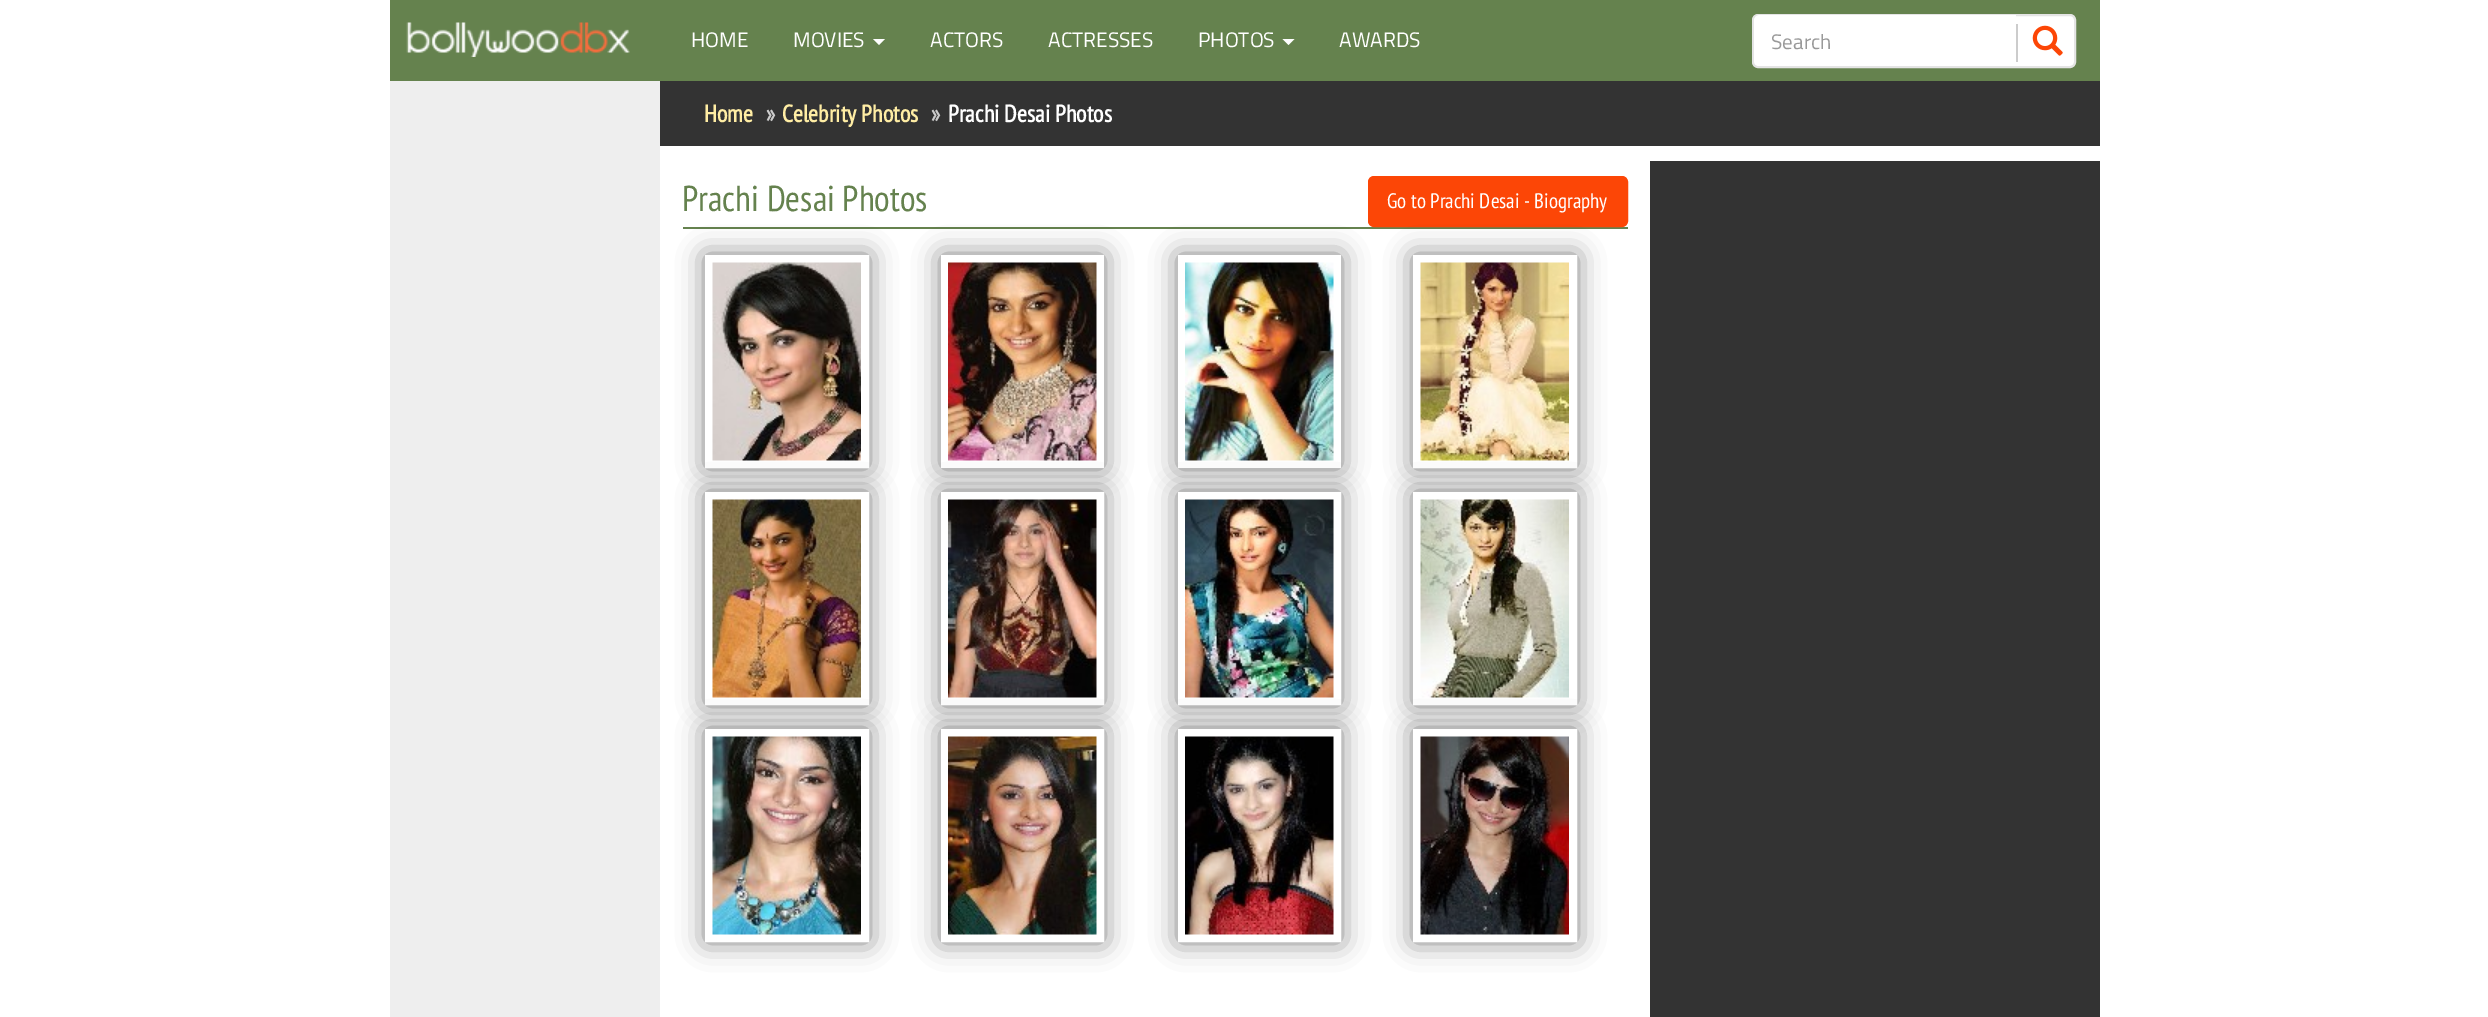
%!PS
<< /PageSize [2488 1017] /PageUsesTransparency true >> setpagedevice
/m/moveto load def
/l/rlineto load def
/c/rcurveto load def
/z/closepath load def
/f/fill load def
/s/stroke load def
/q/gsave load def
/Q_/grestore load def
/w/setlinewidth load def
/C { dup -16 bitshift 255 div exch dup -8 bitshift 255 and 255 div exch 255 and 255 div setrgbcolor } def
/F { [ exch dup neg 0 0 3 -1 roll 0 0 ] selectfont } def
/T { moveto show } def
/R { rectfill } def
/A { dup .setfillconstantalpha .setstrokeconstantalpha } def
/Q { 5 dict begin { /r /h /w /y /x } { exch def } forall
  x r add y moveto x w add y 2 copy h add r arct x w add y h add x 1 index r arct
  x y h add x y r arct x y 2 copy exch w add exch r arct closepath end } def
/S { 12 dict begin { /a /b /q /h /w /y /x } { exch def } forall gsave /was 0 def
  9 -2 -9 { dup b mul 4 div /e exch def 1 sub .425 mul 2.718 exch exp 1 add a .99 .min exch div /now exch def
    1 1 now sub 1 was sub div sub A /was now def
    w h .min e 2 mul add 0 gt { x e sub y e sub w e 2 mul add h e 2 mul add
      q e add b .6 mul add w h .min 2 div e add .min 0 .max Q fill } if } for grestore end } def
/I { 5 dict begin { /h /w /y /x /name } { exch def } forall
  gsave x y translate w h scale
  w h 8 [w 0 0 h 0 0] name (r) file false 3 colorimage grestore end } def
0 .pushpdf14devicefilter
0 1017 translate 1 -1 scale
4 setmiterlimit
16#FFFFFF C
0 0 2488 1017 R
16#65824E C
390 0 1710 81 R
(1.rgb) 406 22 224 35 I
/TitilliumWeb-Regular 21 F
16#FFFFFF C
(HOME) 691 47 T
(MOVIES) 793 47 T
873 39 m 12 0 l -6 6 l z f
(ACTORS) 930 47 T
(ACTRESSES) 1048 47 T
(PHOTOS) 1198 47 T
1282.5 39 m 12 0 l -6 6 l z f
(AWARDS) 1339 47 T
1753 15 322 52 5 Q q f Q_
16#E4E4E4 C
2 w
s
16#FFFFFF C
1760 15 m 256 0 l 0 51 l -256 0 l -3.5 0 -6 -2.5 -6 -6 c 0 -39 l 0 -3.5 2.5 -6 6 -6 c z f
16#999999 C
(Search) 1771 49 T
16#CCCCCC C
2016 24 2 38 R
(2.rgb) 2032 25 31 31 I
16#EEEEEE C
390 81 270 936 R
16#333333 C
660 81 1440 65 R
/PTSansNarrow-Bold 24 F
16#FFEDA4 C
(Home) 704 122 T
16#CCCCCC C
(») 766 122 T
16#FFEDA4 C
(Celebrity Photos) 782 122 T
16#CCCCCC C
(») 931 122 T
16#FFFFFF C
(Prachi Desai Photos) 948 122 T
16#65824E C
683 227 945 2 R
/PTSansNarrow-Regular 36 F
(Prachi Desai Photos) 682 211 T
16#FC4606 C
1369 177 258 49 5 Q q f Q_
s
/PTSansNarrow-Regular 21 F
16#FFFFFF C
(Go to Prachi Desai - Biography) 1387 208 T
16#000000 C
705 255 164 213 0 13.5 .5 S
16#FFFFFF C
8 w
709 259 156 205 rectstroke
(3.rgb) 712 262 149 199 I
q
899 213 m 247 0 l 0 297 l -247 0 l z 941 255 m 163 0 l 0 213 l -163 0 l z eoclip newpath
16#000000 C
941 255 163 213 0 13.5 .5 S
Q_
(4.rgb) 948 262 149 199 I
q
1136 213 m 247 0 l 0 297 l -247 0 l z 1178 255 m 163 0 l 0 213 l -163 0 l z eoclip newpath
16#000000 C
1178 255 163 213 0 13.5 .5 S
Q_
(5.rgb) 1185 262 149 199 I
16#000000 C
1413 255 164 213 0 13.5 .5 S
16#FFFFFF C
1417 259 156 205 rectstroke
(6.rgb) 1420 262 149 199 I
16#000000 C
705 492 164 213 0 13.5 .5 S
16#FFFFFF C
709 496 156 205 rectstroke
(7.rgb) 712 499 149 199 I
16#000000 C
941 492 163 213 0 13.5 .5 S
16#FFFFFF C
945 496 155 205 rectstroke
(8.rgb) 948 499 149 199 I
16#000000 C
1178 492 163 213 0 13.5 .5 S
16#FFFFFF C
1182 496 155 205 rectstroke
(9.rgb) 1185 499 149 199 I
16#000000 C
1413 492 164 213 0 13.5 .5 S
16#FFFFFF C
1417 496 156 205 rectstroke
(10.rgb) 1420 499 149 199 I
16#000000 C
705 729 164 213 0 13.5 .5 S
16#FFFFFF C
709 733 156 205 rectstroke
(11.rgb) 712 736 149 199 I
16#000000 C
941 729 163 213 0 13.5 .5 S
16#FFFFFF C
945 733 155 205 rectstroke
(12.rgb) 948 736 149 199 I
16#000000 C
1178 729 163 213 0 13.5 .5 S
16#FFFFFF C
1182 733 155 205 rectstroke
(13.rgb) 1185 736 149 199 I
16#000000 C
1413 729 164 213 0 13.5 .5 S
16#FFFFFF C
1417 733 156 205 rectstroke
(14.rgb) 1420 736 149 199 I
16#333333 C
1650 161 450 856 R
.poppdf14devicefilter showpage
